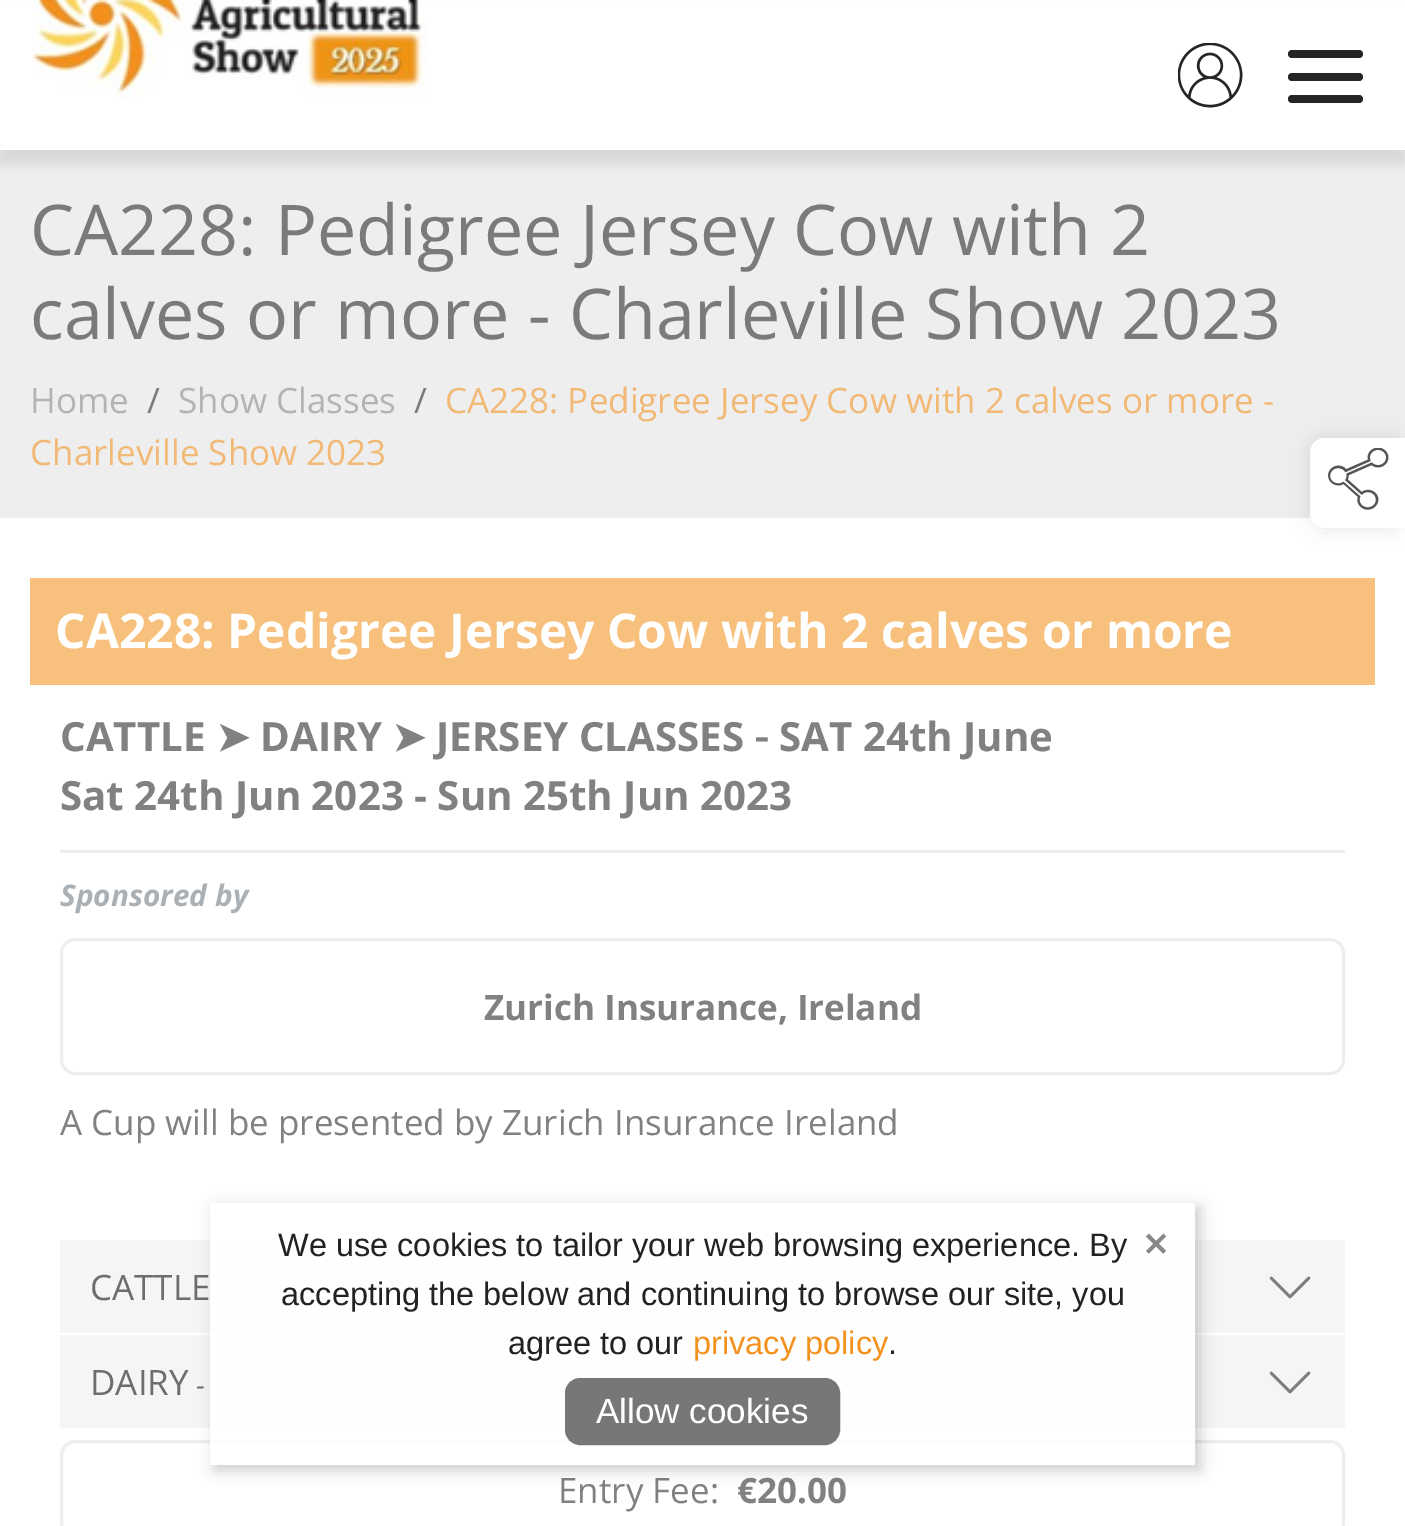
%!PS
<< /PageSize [1405 1526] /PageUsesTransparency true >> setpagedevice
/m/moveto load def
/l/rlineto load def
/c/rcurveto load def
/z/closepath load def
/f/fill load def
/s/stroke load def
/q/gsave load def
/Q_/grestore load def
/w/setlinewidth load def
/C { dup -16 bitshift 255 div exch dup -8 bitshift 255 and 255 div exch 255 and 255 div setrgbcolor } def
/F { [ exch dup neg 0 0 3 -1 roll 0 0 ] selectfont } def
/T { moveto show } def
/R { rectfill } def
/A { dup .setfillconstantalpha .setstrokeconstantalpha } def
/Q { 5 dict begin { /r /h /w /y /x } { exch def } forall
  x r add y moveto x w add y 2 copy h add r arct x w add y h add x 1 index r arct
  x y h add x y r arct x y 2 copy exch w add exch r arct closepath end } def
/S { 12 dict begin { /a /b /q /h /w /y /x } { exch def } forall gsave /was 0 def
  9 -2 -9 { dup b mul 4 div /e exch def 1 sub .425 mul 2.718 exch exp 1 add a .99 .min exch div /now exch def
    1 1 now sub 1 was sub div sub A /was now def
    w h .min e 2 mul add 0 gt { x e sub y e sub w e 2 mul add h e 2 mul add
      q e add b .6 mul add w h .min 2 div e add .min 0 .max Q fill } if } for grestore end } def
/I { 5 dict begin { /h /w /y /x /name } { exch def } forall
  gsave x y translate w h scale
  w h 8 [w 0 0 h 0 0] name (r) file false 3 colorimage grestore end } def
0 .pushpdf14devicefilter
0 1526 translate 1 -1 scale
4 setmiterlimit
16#FFFFFF C
0 0 1405 1526 R
16#EEEEEE C
0 150 1405 368 R
16#000000 C
0 13 1405 150 0 6 .1 S
16#FFFFFF C
0 5 1405 145 R
(1.rgb) 32 0 396 99 I
(2.rgb) 1178 43 65 65 I
16#252525 C
1288 73 75 8 4 Q f
1288 50 75 8 4 Q f
1288 95 75 8 4 Q f
/OpenSans-Regular 70 F
16#7A7A7A C
(CA228: Pedigree Jersey Cow with 2) 30 255 T
(calves or more - Charleville Show 2023) 30 339 T
/OpenSans-Regular 35 F
16#B3B3B3 C
(Home) 30 413 T
16#7A7A7A C
(/) 147 413 T
16#B3B3B3 C
(Show Classes) 178 413 T
16#7A7A7A C
(/) 414 413 T
16#F1B975 C
(CA228: Pedigree Jersey Cow with 2 calves or more -) 445 413 T
(Charleville Show 2023) 30 465 T
16#000000 C
1310 438 95 90 15 10 .1 S
16#FFFFFF C
1325 438 m 80 0 l 0 90 l -80 0 l -8.5 0 -15 -6.5 -15 -15 c 0 -60 l 0 -8.5 6.5 -15 15 -15 c z f
(3.rgb) 1328 448 61 62 I
16#F8C07D C
30 578 1345 107 R
/OpenSans-Bold 48 F
16#FFFFFF C
(CA228: Pedigree Jersey Cow with 2 calves or more) 55 648 T
16#ECEEF1 C
60 850 1285 3 R
/OpenSans-Bold 40.25 F
16#818181 C
(CATTLE) 60 751 T
/DejaVuSans-Bold 40.25 F
(➤) 216 751 T
/OpenSans-Bold 40.25 F
(DAIRY) 260 751 T
/DejaVuSans-Bold 40.25 F
(➤) 392 751 T
/OpenSans-Bold 40.25 F
(JERSEY CLASSES) 436 751 T
/DejaVuSans-Bold 40.25 F
(-) 754 751 T
/OpenSans-Bold 40.25 F
(SAT 24th June) 779 751 T
(Sat 24th Jun 2023 - Sun 25th Jun 2023) 60 810 T
/OpenSans-BoldItalic 29.75 F
16#ABB0B5 C
(Sponsored by) 60 906 T
16#ECEEF1 C
3 w
61.5 939.5 1282 134 13.5 Q s
/OpenSans-Bold 35 F
16#818181 C
(Zurich Insurance, Ireland) 484 1020 T
/OpenSans-Regular 35 F
(A Cup will be presented by Zurich Insurance Ireland) 60 1135 T
16#F5F5F5 C
60 1240 1285 93 R
16#6D6D6D C
(CATTLE) 90 1300 T
(4.rgb) 1269 1276 42 23 I
16#F5F5F5 C
60 1335 1285 93 R
16#6D6D6D C
(DAIRY) 90 1395 T
/OpenSans-Italic 28 F
(-) 196 1395 T
(4.rgb) 1269 1371 42 23 I
16#ECEEF1 C
61.5 1441.5 1282 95 13.5 Q s
/OpenSans-Regular 35 F
16#818181 C
(Entry Fee:) 558 1503 T
/OpenSans-Bold 35 F
(€20.00) 737 1503 T
q
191 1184 m 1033 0 l 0 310 l -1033 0 l z 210 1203 m 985 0 l 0 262 l -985 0 l z eoclip newpath
16#000000 C
215 1208 985 262 0 7.5 .2 S
Q_
0.9 A
16#FFFFFF C
210 1240 985 203 R
/LiberationSans-Regular 32.5 F
1 A
16#222222 C
(We use cookies to tailor your web browsing experience. By) 278 1256 T
(accepting the below and continuing to browse our site, you) 281 1305 T
(agree to our) 508 1354 T
16#F3911C C
(privacy policy) 693 1354 T
16#222222 C
(.) 888 1354 T
/DejaVuSans-Bold 32.5 F
16#888888 C
(✕) 1142 1256 T
16#777777 C
566.5 1379.5 272 64 13.5 Q q f Q_
s
/LiberationSans-Regular 35 F
16#FFFFFF C
(Allow cookies) 596 1423 T
.poppdf14devicefilter showpage
